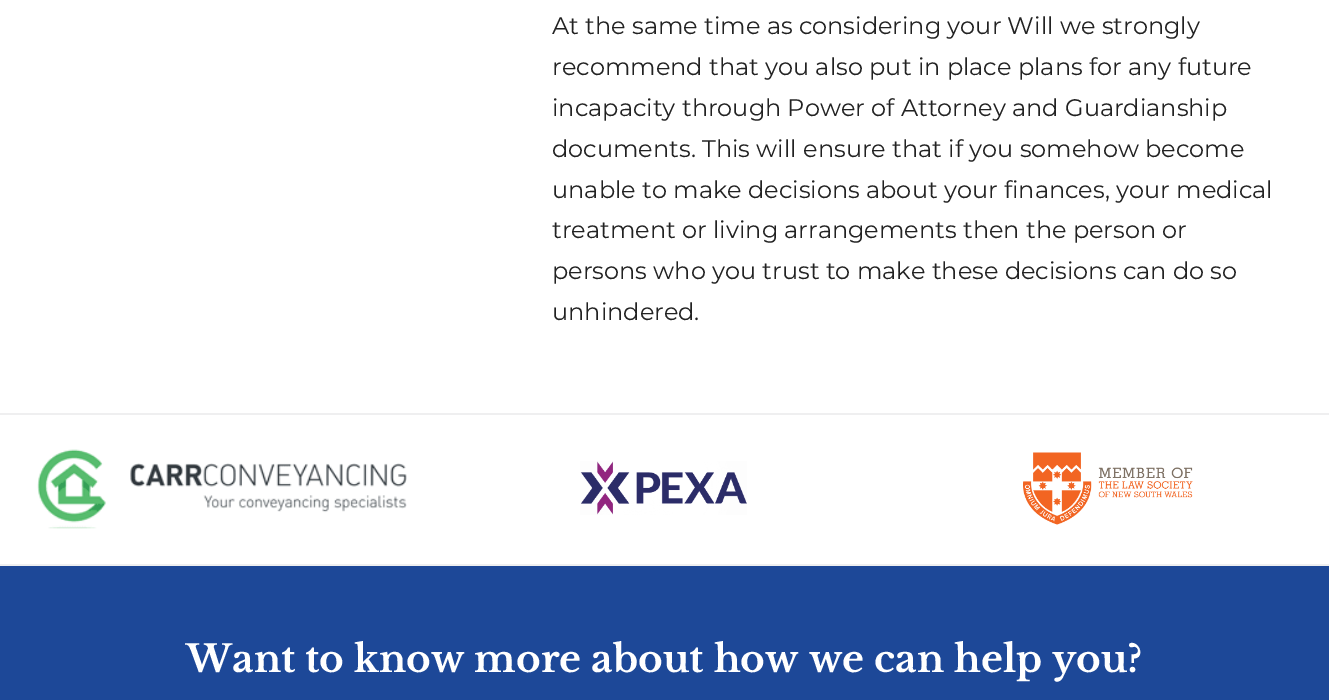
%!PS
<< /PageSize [1329 700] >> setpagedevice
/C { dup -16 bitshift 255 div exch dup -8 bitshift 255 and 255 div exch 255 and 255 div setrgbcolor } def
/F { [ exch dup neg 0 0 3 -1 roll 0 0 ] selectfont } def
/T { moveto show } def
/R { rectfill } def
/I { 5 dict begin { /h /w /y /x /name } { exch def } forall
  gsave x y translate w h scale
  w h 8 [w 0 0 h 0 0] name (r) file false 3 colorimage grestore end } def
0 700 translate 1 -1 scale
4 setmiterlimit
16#FFFFFF C
0 0 1329 700 R
/Montserrat-Regular 24 F
16#222222 C
(At the same time as considering your Will we strongly) 552 34 T
(recommend that you also put in place plans for any future) 552 75 T
(incapacity through Power of Attorney and Guardianship) 552 116 T
(documents. This will ensure that if you somehow become) 552 157 T
(unable to make decisions about your finances, your medical) 552 198 T
(treatment or living arrangements then the person or) 552 238 T
(persons who you trust to make these decisions can do so) 552 279 T
(unhindered.) 552 320 T
16#EFEFF0 C
0 413 1329 2 R
0 564 1329 2 R
(1.rgb) 37 449 370 80 I
(2.rgb) 580 461 167 54 I
(3.rgb) 1023 452 170 73 I
16#1D4898 C
0 566 1329 134 R
/LibreBaskerville-Bold 37.5 F
16#FFFFFF C
(Want to know more about how we can help you?) 186 672 T
showpage
